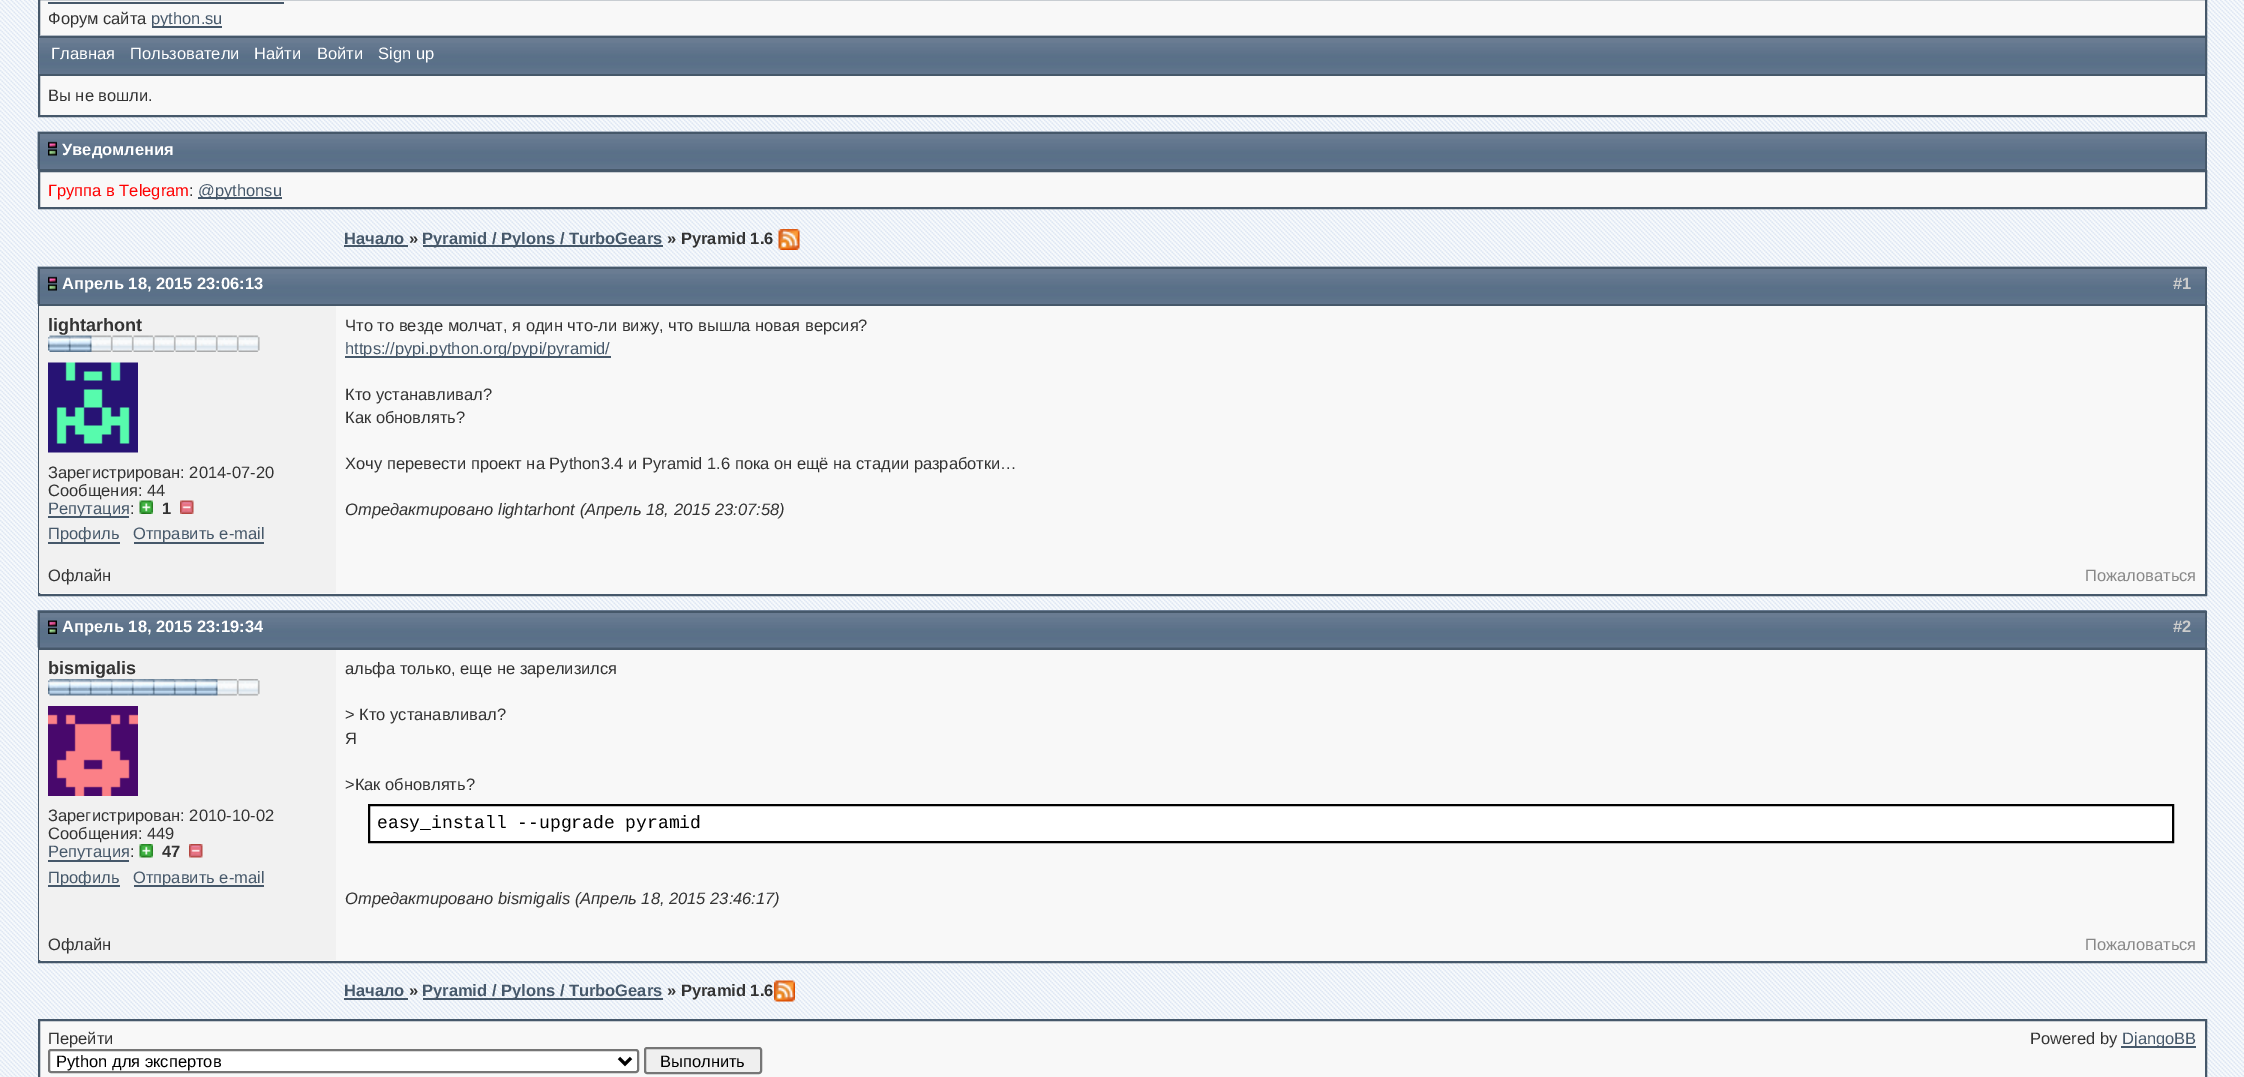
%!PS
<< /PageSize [2244 1077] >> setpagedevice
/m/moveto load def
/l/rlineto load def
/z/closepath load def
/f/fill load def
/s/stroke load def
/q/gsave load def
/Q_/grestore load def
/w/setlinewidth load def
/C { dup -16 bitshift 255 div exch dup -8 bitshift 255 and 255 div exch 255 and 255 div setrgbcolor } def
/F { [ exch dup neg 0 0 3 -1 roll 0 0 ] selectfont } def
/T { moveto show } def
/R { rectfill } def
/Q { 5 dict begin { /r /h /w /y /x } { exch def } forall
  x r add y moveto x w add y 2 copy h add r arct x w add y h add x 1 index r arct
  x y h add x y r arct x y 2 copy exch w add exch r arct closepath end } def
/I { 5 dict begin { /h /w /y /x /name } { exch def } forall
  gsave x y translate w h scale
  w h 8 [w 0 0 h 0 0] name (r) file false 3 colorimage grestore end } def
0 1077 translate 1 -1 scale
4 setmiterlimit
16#FFFFFF C
0 0 2244 1077 R
(1.rgb) 0 0 2244 1077 I
16#F8F8F8 C
39 -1 m 2167 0 l 0 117 l -2167 0 l z q f Q_
16#46586A C
2 w
s
48 2 236 2 R
/LiberationSans-Regular 16.5 F
16#333333 C
(Форум сайта) 48 24 T
16#46586A C
152 26 70 2 R
(python.su) 151 24 T
(2.rgb) 39 35 2166 39 I
39 36 2166 2 R
39 74 2166 2 R
16#FFFFFF C
(Главная) 51 59 T
(Пользователи) 130 59 T
(Найти) 254 59 T
(Войти) 317 59 T
(Sign up) 378 59 T
16#333333 C
(Вы не вошли.) 48 101 T
16#46586A C
40 169 2165 1 R
(3.rgb) 37 131 2170 38 I
38 132 2169 2 R
2205 132 2 38 R
38 132 2 38 R
(4.rgb) 48 141 9 15 I
/LiberationSans-Bold 16.5 F
16#FFFFFF C
(Уведомления) 62 155 T
16#F8F8F8 C
39 171 m 2167 0 l 0 37 l -2167 0 l z q f Q_
16#46586A C
s
/LiberationSans-Regular 16.5 F
16#FF0000 C
(Группа в Telegram) 48 196 T
16#333333 C
(:) 189 196 T
16#46586A C
198 197 84 2 R
(@pythonsu) 198 196 T
/LiberationSans-Bold 16.5 F
(Начало) 344 244 T
344 245 64 2 R
16#333333 C
(») 409 244 T
16#46586A C
423 245 240 2 R
(Pyramid / Pylons / TurboGears) 422 244 T
16#333333 C
(» Pyramid 1.6) 667 244 T
(5.rgb) 778 229 22 21 I
16#F8F8F8 C
40 531 2165 63 R
16#46586A C
40 304 2165 1 R
(6.rgb) 37 266 2170 38 I
38 267 2169 2 R
2205 267 2 38 R
38 267 2 38 R
(7.rgb) 48 276 9 15 I
16#FFFFFF C
(Апрель 18, 2015 23:06:13) 62 289 T
16#CCCCCC C
(#1) 2173 289 T
16#46586A C
39 306 2167 289 rectstroke
16#F1F1F1 C
39 306 297 287 R
/LiberationSans-Bold 18 F
16#333333 C
(lightarhont) 48 331 T
(8.rgb) 48 335 212 17 I
(9.rgb) 48 362 90 91 I
/LiberationSans-Regular 16.5 F
(Зарегистрирован: 2014-07-20) 48 478 T
(Сообщения: 44) 48 496 T
16#46586A C
48 516 81 2 R
(Репутация) 48 514 T
16#333333 C
(:) 130 514 T
(10.rgb) 139 500 14 14 I
/LiberationSans-Bold 16.5 F
(1) 162 514 T
(11.rgb) 180 500 14 14 I
16#46586A C
48 542 72 2 R
/LiberationSans-Regular 16.5 F
(Профиль) 48 539 T
134 542 130 2 R
(Отправить e-mail) 133 539 T
16#F8F8F8 C
336 306 1869 225 R
16#333333 C
(Что то везде молчат, я один что-ли вижу, что вышла новая версия?) 345 331 T
16#46586A C
345 356 266 2 R
(https://pypi.python.org/pypi/pyramid/) 345 354 T
16#333333 C
(Кто устанавливал?) 345 400 T
(Как обновлять?) 345 423 T
(Хочу перевести проект на Python3.4 и Pyramid 1.6 пока он ещё на стадии разработки…) 345 469 T
/LiberationSans-Italic 16.5 F
(Отредактировано lightarhont \(Апрель 18, 2015 23:07:58\)) 345 515 T
/LiberationSans-Regular 16.5 F
(Офлайн) 48 581 T
16#888888 C
(Пожаловаться) 2085 581 T
16#F8F8F8 C
40 960 2165 1 R
16#46586A C
40 647 2165 1 R
(12.rgb) 37 610 2170 38 I
38 611 2169 2 R
2205 611 2 37 R
38 611 2 37 R
(13.rgb) 48 620 9 14 I
/LiberationSans-Bold 16.5 F
16#FFFFFF C
(Апрель 18, 2015 23:19:34) 62 632 T
16#CCCCCC C
(#2) 2173 632 T
16#46586A C
39 649 2167 313 rectstroke
16#F1F1F1 C
39 650 297 310 R
/LiberationSans-Bold 18 F
16#333333 C
(bismigalis) 48 674 T
(14.rgb) 48 679 212 17 I
(15.rgb) 48 706 90 90 I
/LiberationSans-Regular 16.5 F
(Зарегистрирован: 2010-10-02) 48 821 T
(Сообщения: 449) 48 839 T
16#46586A C
48 860 81 2 R
(Репутация) 48 857 T
16#333333 C
(:) 130 857 T
(16.rgb) 139 844 14 14 I
/LiberationSans-Bold 16.5 F
(47) 162 857 T
(17.rgb) 189 844 14 14 I
16#46586A C
48 885 72 2 R
/LiberationSans-Regular 16.5 F
(Профиль) 48 883 T
134 885 130 2 R
(Отправить e-mail) 133 883 T
16#F8F8F8 C
336 650 1869 310 R
16#333333 C
(альфа только, еще не зарелизился) 345 674 T
(> Кто устанавливал?) 345 720 T
(Я) 345 744 T
(>Как обновлять?) 345 790 T
16#FFFFFF C
369 805 m 1804 0 l 0 37 l -1804 0 l z q f Q_
16#000000 C
s
/LiberationMono-Regular 18 F
(easy_install --upgrade pyramid) 377 828 T
/LiberationSans-Italic 16.5 F
16#333333 C
(Отредактировано bismigalis \(Апрель 18, 2015 23:46:17\)) 345 904 T
/LiberationSans-Regular 16.5 F
(Офлайн) 48 950 T
16#888888 C
(Пожаловаться) 2085 950 T
/LiberationSans-Bold 16.5 F
16#46586A C
(Начало) 344 996 T
344 998 64 2 R
16#333333 C
(») 409 996 T
16#46586A C
423 998 240 2 R
(Pyramid / Pylons / TurboGears) 422 996 T
16#333333 C
(» Pyramid 1.6) 667 996 T
(18.rgb) 774 980 21 22 I
16#F8F8F8 C
39 1020 m 2167 0 l 0 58 l -2167 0 l z q f Q_
16#46586A C
s
/LiberationSans-Regular 16.5 F
16#333333 C
(Перейти) 48 1044 T
16#FFFFFF C
49 1050 589 22 2 Q q f Q_
16#767676 C
s
16#000000 C
3 w
619 1058 m 6 6 l 6 -6 l s
(Python для экспертов) 56 1067 T
16#EFEFEF C
645 1048 116 25 2 Q q f Q_
16#767676 C
2 w
s
16#000000 C
(Выполнить) 660 1067 T
16#333333 C
(Powered by) 2030 1044 T
16#46586A C
2121 1046 75 2 R
(DjangoBB) 2122 1044 T
showpage
